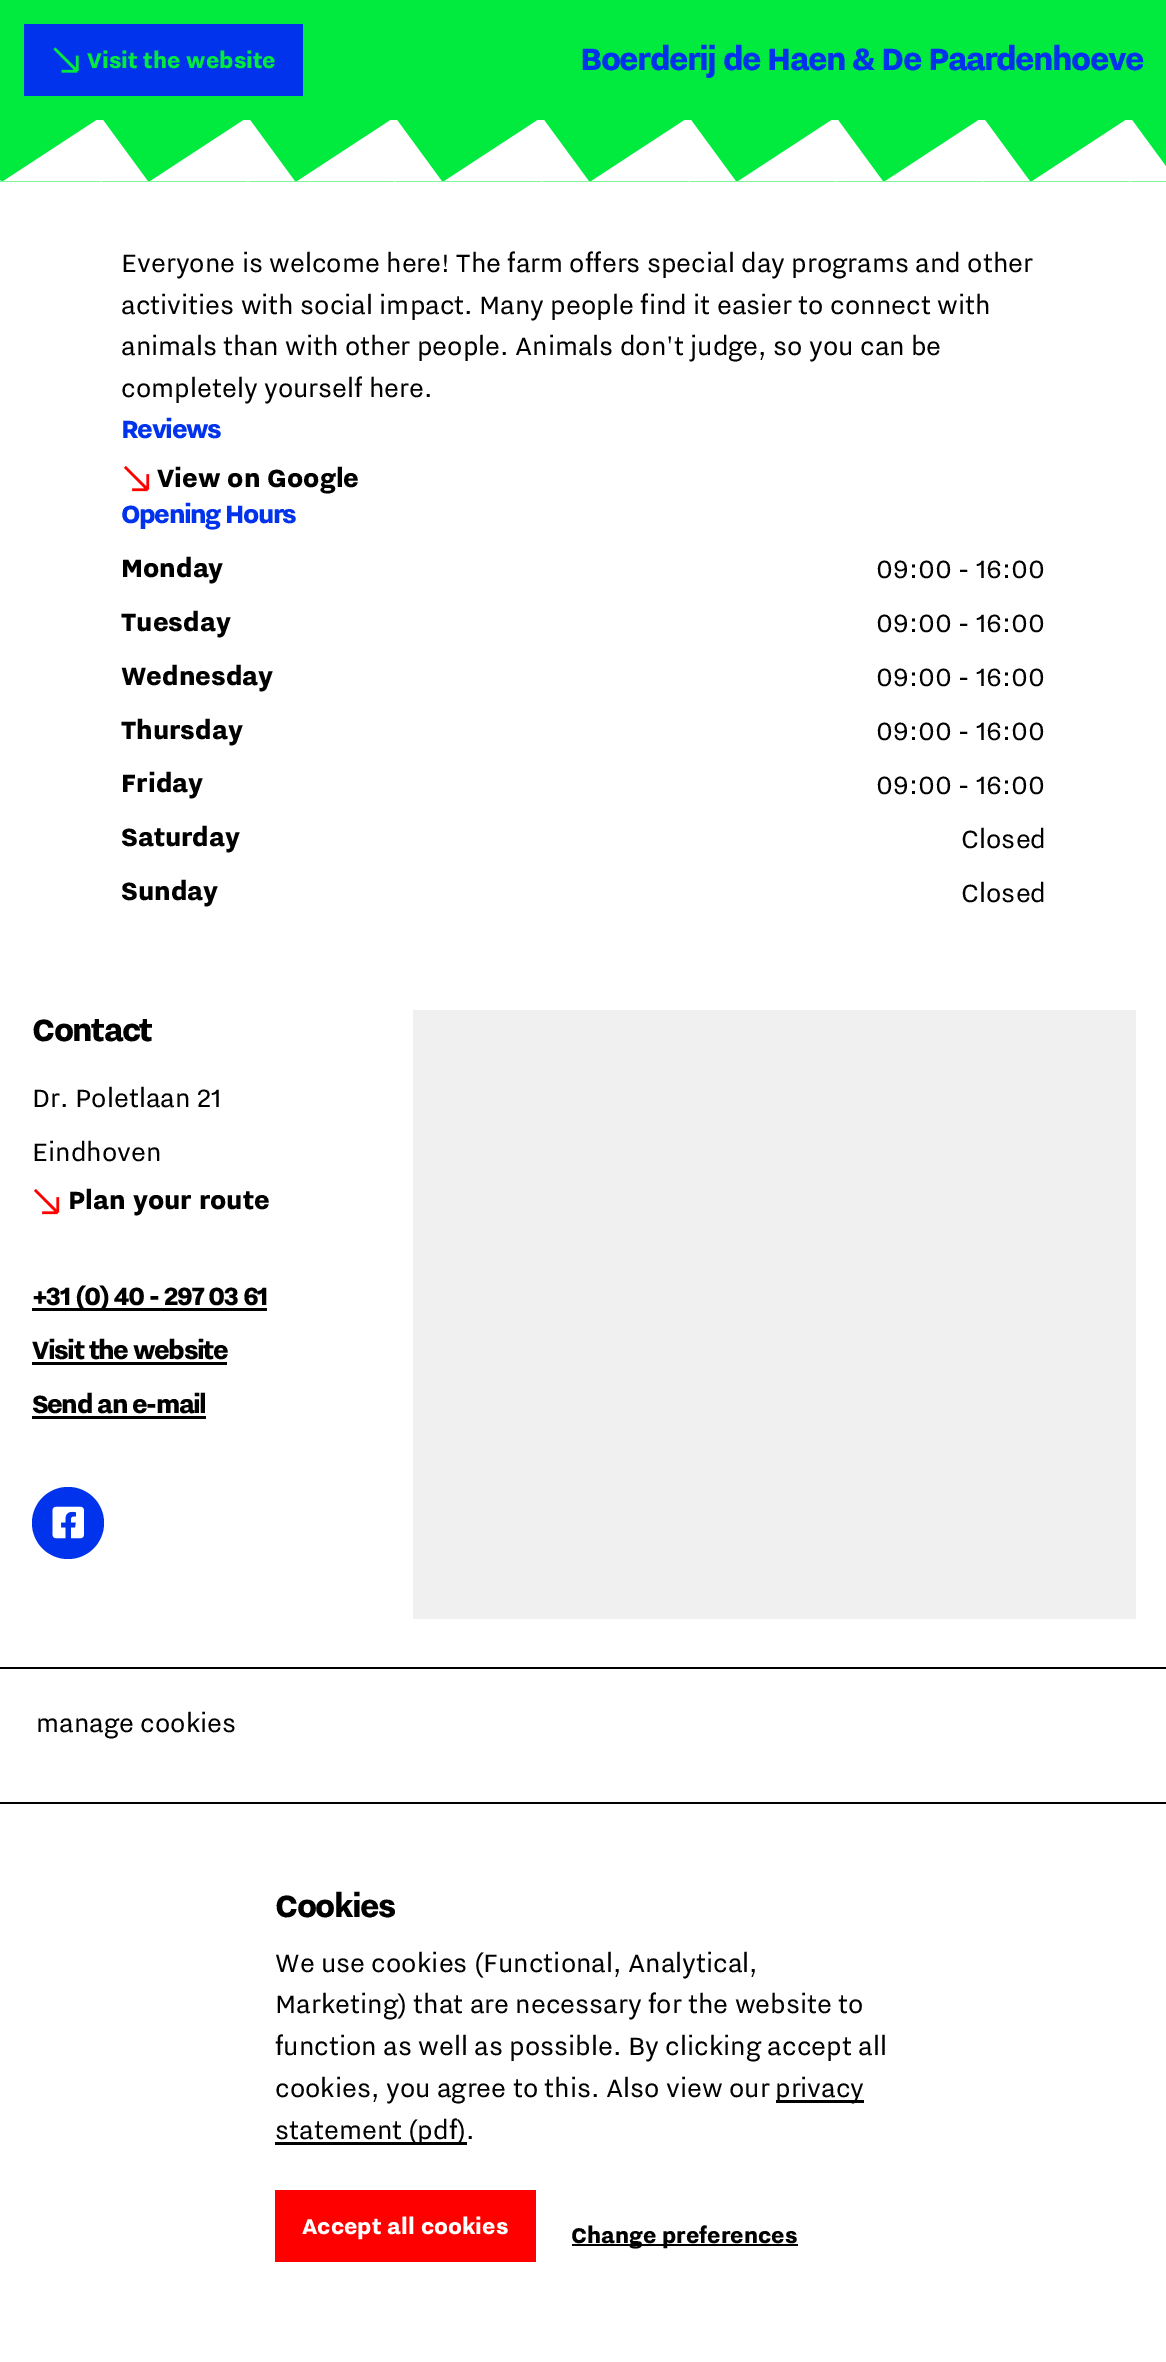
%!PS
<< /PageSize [1166 2362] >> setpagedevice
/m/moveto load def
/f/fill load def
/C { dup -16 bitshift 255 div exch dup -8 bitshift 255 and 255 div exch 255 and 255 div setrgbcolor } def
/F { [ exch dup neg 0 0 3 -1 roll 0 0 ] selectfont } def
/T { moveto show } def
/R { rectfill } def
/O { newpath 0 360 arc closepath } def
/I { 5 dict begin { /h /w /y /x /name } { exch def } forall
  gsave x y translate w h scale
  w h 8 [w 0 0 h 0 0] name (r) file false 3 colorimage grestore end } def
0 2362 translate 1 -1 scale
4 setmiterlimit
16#FFFFFF C
0 0 1166 2362 R
16#00EB3D C
0 0 1166 120 R
16#0033EB C
24 24 279 72 R
(1.rgb) 53 47 26 26 I
/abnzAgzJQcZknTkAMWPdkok-ExtraBold 27 F
16#00EB3D C
(Visit the website) 87 68 T
/abnzAgzJQcZknTkAMWPdkok-ExtraBold 39 F
16#0033EB C
580 70 m -1.5 0 (Boerderij de Haen & De Paardenhoeve) ashow
(2.rgb) 0 120 1166 62 I
/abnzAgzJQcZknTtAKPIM-Regular 31.5 F
16#000000 C
(Everyone is welcome here! The farm offers special day programs and other) 121 272 T
(activities with social impact. Many people find it easier to connect with) 121 314 T
(animals than with other people. Animals don't judge, so you can be) 121 355 T
(completely yourself here.) 121 397 T
/abnzAgzJQcZknTkAMWPdkok-ExtraBold 31.5 F
16#0033EB C
121 438 m -1.5 0 (Reviews) ashow
(3.rgb) 123 465 27 27 I
16#000000 C
(View on Google) 157 487 T
16#0033EB C
121 523 m -1.5 0 (Opening Hours) ashow
16#000000 C
(Monday) 121 577 T
/abnzAgzJQcZknTtAKPIM-Regular 31.5 F
(09:00 - 16:00) 876 578 T
/abnzAgzJQcZknTkAMWPdkok-ExtraBold 31.5 F
(Tuesday) 121 631 T
/abnzAgzJQcZknTtAKPIM-Regular 31.5 F
(09:00 - 16:00) 876 632 T
/abnzAgzJQcZknTkAMWPdkok-ExtraBold 31.5 F
(Wednesday) 121 685 T
/abnzAgzJQcZknTtAKPIM-Regular 31.5 F
(09:00 - 16:00) 876 686 T
/abnzAgzJQcZknTkAMWPdkok-ExtraBold 31.5 F
(Thursday) 121 739 T
/abnzAgzJQcZknTtAKPIM-Regular 31.5 F
(09:00 - 16:00) 876 740 T
/abnzAgzJQcZknTkAMWPdkok-ExtraBold 31.5 F
(Friday) 121 792 T
/abnzAgzJQcZknTtAKPIM-Regular 31.5 F
(09:00 - 16:00) 876 794 T
/abnzAgzJQcZknTkAMWPdkok-ExtraBold 31.5 F
(Saturday) 121 846 T
/abnzAgzJQcZknTtAKPIM-Regular 31.5 F
(Closed) 961 848 T
/abnzAgzJQcZknTkAMWPdkok-ExtraBold 31.5 F
(Sunday) 121 900 T
/abnzAgzJQcZknTtAKPIM-Regular 31.5 F
(Closed) 961 902 T
/abnzAgzJQcZknTkAMWPdkok-ExtraBold 39 F
32 1041 m -1.5 0 (Contact) ashow
/abnzAgzJQcZknTtAKPIM-Regular 31.5 F
(Dr. Poletlaan 21) 32 1107 T
(Eindhoven) 32 1161 T
(3.rgb) 33 1188 27 27 I
/abnzAgzJQcZknTkAMWPdkok-ExtraBold 31.5 F
(Plan your route) 68 1209 T
32 1308 235 3 R
32 1305 m -1.5 0 (+31 \(0\) 40 - 297 03 61) ashow
32 1359 m -1.5 0 (Visit the website) ashow
32 1362 195 3 R
32 1413 m -1.5 0 (Send an e-mail) ashow
32 1416 174 3 R
16#0033EB C
68 1523 36 O f
(4.rgb) 52 1506 32 33 I
16#F0F0F0 C
413 1010 723 609 R
16#000000 C
0 1667 1166 2 R
/abnzAgzJQcZknTtAKPIM-Regular 31.5 F
(manage cookies) 36 1732 T
0 1802 1166 2 R
/abnzAgzJQcZknTkAMWPdkok-ExtraBold 39 F
275 1917 m -1.5 0 (Cookies) ashow
/abnzAgzJQcZknTtAKPIM-Regular 31.5 F
(We use cookies \(Functional, Analytical,) 275 1972 T
(Marketing\) that are necessary for the website to) 275 2013 T
(function as well as possible. By clicking accept all) 275 2055 T
(cookies, you agree to this. Also view our) 275 2097 T
776 2100 88 3 R
(privacy) 775 2097 T
275 2142 192 3 R
(statement \(pdf\).) 275 2139 T
16#FF0000 C
275 2190 261 72 R
/abnzAgzJQcZknTkAMWPdkok-ExtraBold 27 F
16#FFFFFF C
(Accept all cookies) 302 2234 T
16#000000 C
572 2244 226 2 R
(Change preferences) 571 2243 T
showpage
